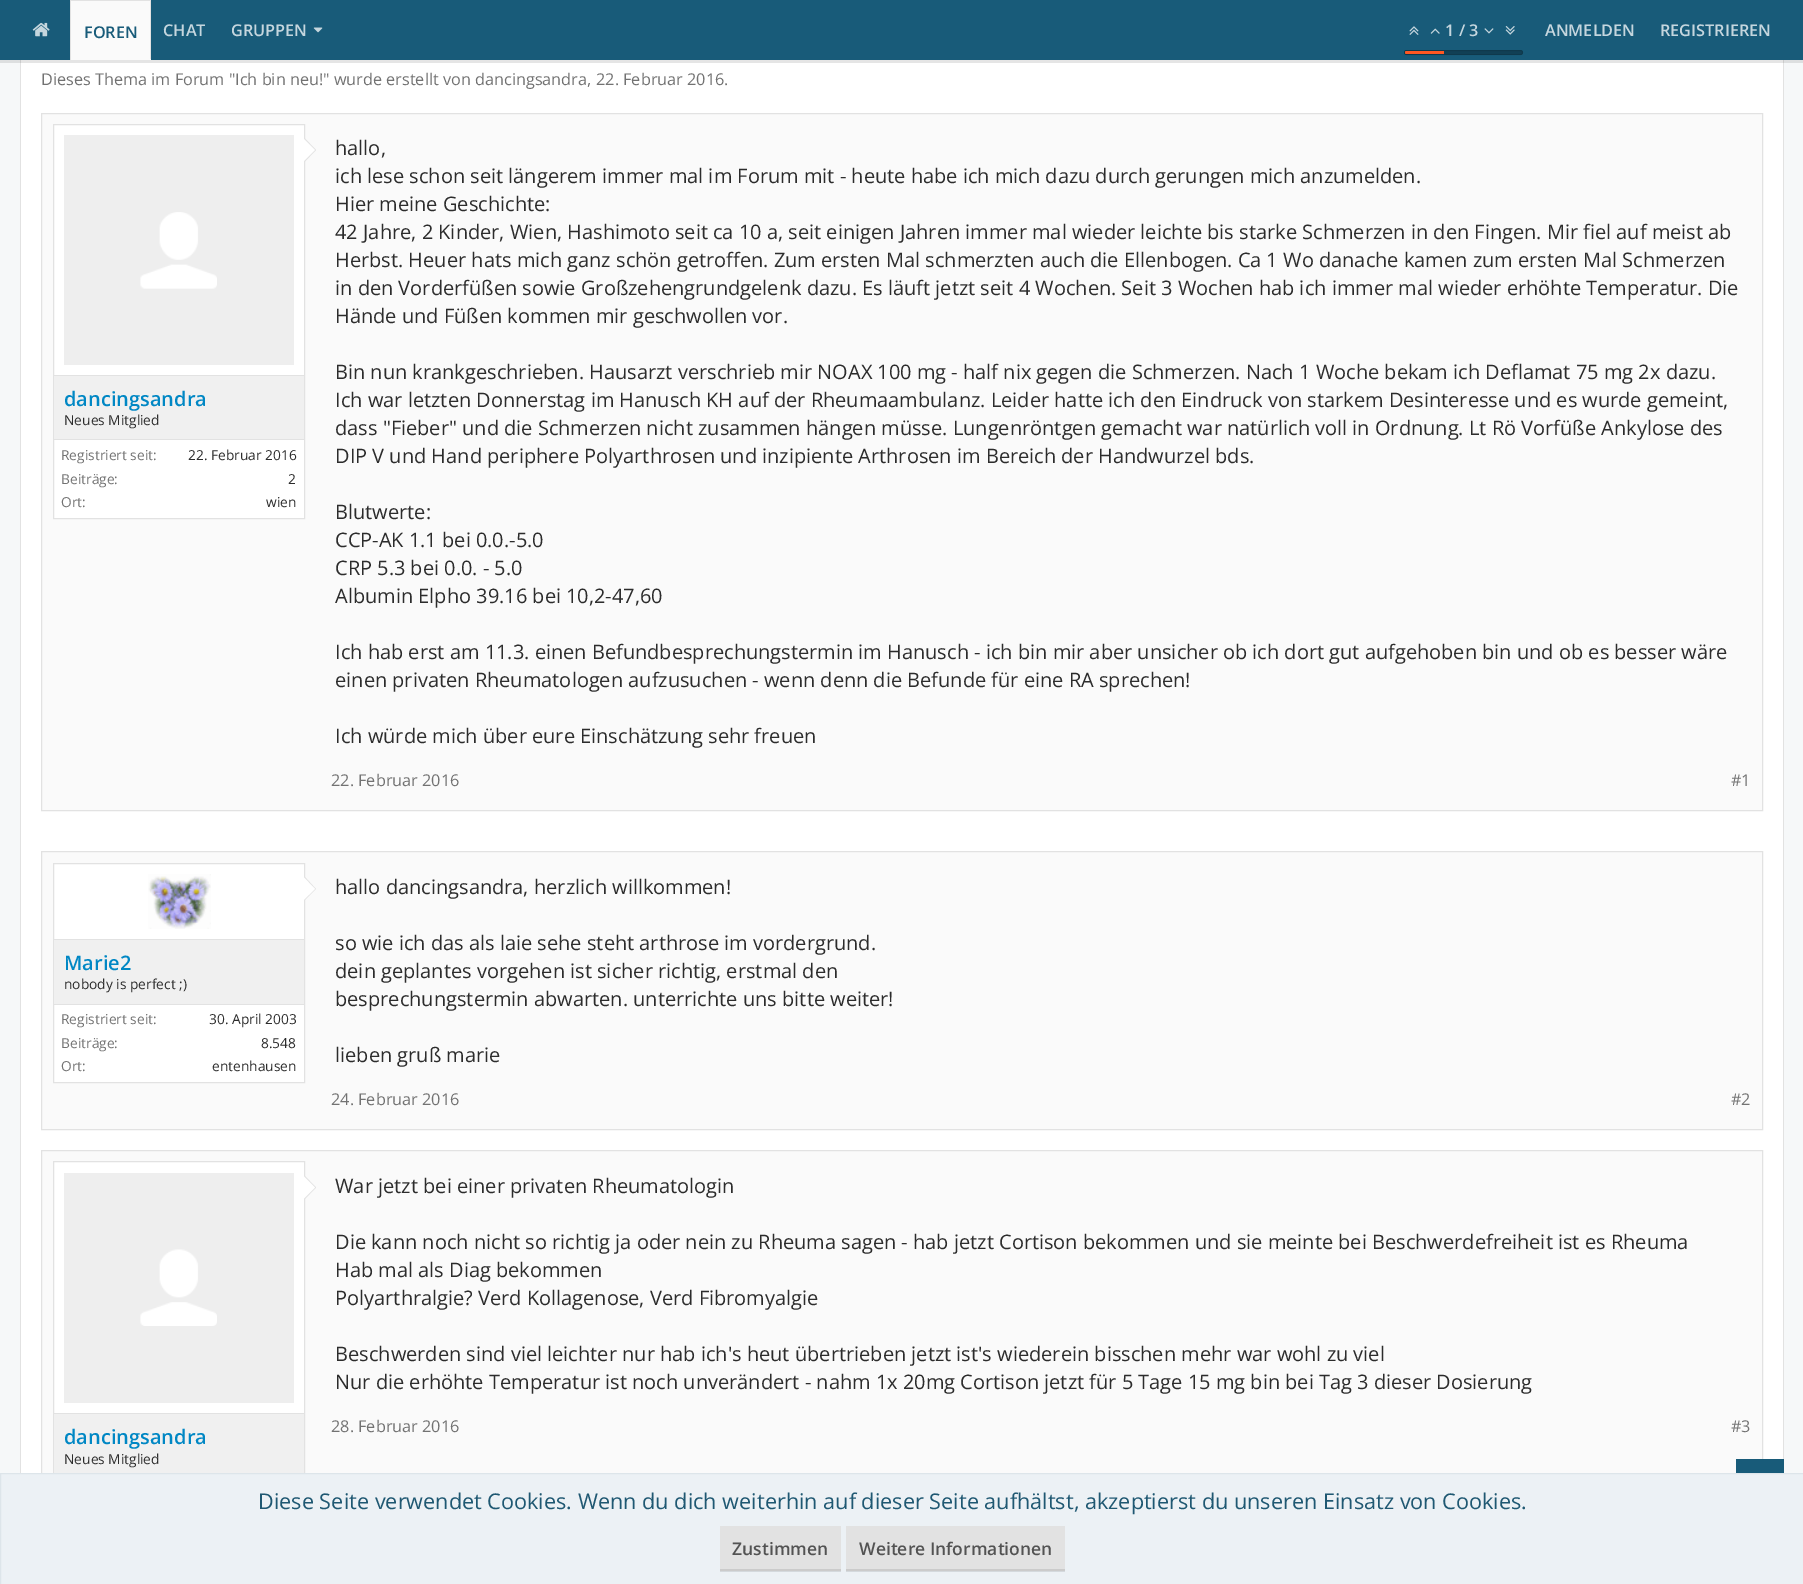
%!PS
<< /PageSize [1803 1584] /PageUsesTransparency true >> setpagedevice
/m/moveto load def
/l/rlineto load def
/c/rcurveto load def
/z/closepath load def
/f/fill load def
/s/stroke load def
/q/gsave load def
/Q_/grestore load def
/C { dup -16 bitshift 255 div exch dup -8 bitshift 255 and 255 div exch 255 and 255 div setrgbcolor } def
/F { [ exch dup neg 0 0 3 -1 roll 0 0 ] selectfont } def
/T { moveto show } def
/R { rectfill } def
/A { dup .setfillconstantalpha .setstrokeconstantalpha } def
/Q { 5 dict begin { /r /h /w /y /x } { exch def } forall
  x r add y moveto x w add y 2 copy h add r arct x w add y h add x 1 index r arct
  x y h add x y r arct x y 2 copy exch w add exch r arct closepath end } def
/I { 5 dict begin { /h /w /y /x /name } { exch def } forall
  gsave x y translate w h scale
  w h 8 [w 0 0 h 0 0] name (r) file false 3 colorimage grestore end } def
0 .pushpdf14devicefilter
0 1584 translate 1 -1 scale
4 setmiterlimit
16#F6F8F9 C
0 0 1803 1584 R
16#FFFFFF C
21 60 1762 1413 R
16#E2E2E2 C
1783 60 1 1399 R
20 60 1 1413 R
0.1 A
16#000000 C
0 60 m 0 3 l 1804 0 l 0 -60 l 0 57 l z f
1 A
16#185B79 C
0 0 1803 60 R
(1.rgb) 32 22 18 15 I
16#FAFAFA C
71 1 79 58 R
16#E2E2E2 C
70 0 81 1 R
150 0 1 60 R
16#FAFAFA C
70 59 81 1 R
16#E2E2E2 C
70 0 1 60 R
/OpenSans-SemiBold 16.25 F
16#185B79 C
(FOREN) 84 38 T
16#C5D6DE C
(CHAT) 163 36 T
(GRUPPEN) 231 36 T
(2.rgb) 313 27 10 6 I
(3.rgb) 1409 26 10 9 I
(4.rgb) 1430 28 10 6 I
(1 / 3) 1445 36 T
(5.rgb) 1484 28 10 6 I
(6.rgb) 1505 26 10 9 I
16#114055 C
1404 50 119 5 2.5 Q f
0.1 A
16#000000 C
1404.5 50.5 118 4 2 Q s
1 A
16#FF5722 C
1406.5 51 m 37.5 0 l 0 3 l -37.5 0 l -1 0 -1.5 -.5 -1.5 -1.5 c 0 -1 .5 -1.5 1.5 -1.5 c z f
16#C5D6DE C
(ANMELDEN) 1545 36 T
(REGISTRIEREN) 1660 36 T
/OpenSans-Regular 16.25 F
16#727272 C
(Dieses Thema im Forum ") 41 85 T
(Ich bin neu!) 235 85 T
(" wurde erstellt von) 323 85 T
(dancingsandra) 475 85 T
(,) 587 85 T
(22. Februar 2016) 596 85 T
(.) 724 85 T
16#FAFAFA C
41.5 113.5 m 1721 0 l 0 697 l -1721 0 l z q f Q_
16#E2E2E2 C
s
16#FFFFFF C
53.5 124.5 m 251 0 l 0 394 l -251 0 l z q f Q_
16#E2E2E2 C
s
16#EEEEEE C
64 135 230 230 R
(7.rgb) 140 212 77 77 I
16#E2E2E2 C
304 162.5 m 0 -25 l 12 12.5 l z f
16#FFFFFF C
302.5 162.5 m 0 -25 l 12.5 12.5 l z f
16#F0F0F0 C
54 376 250 63 R
16#E2E2E2 C
54 375 250 1 R
54 439 250 1 R
/OpenSans-SemiBold 20 F
16#0087C4 C
(dancingsandra) 64 406 T
/OpenSans-Regular 13.75 F
16#2C2C2C C
(Neues Mitglied) 64 425 T
16#727272 C
(Registriert seit:) 61 460 T
16#2C2C2C C
(22. Februar 2016) 188 460 T
16#727272 C
(Beiträge:) 61 484 T
16#2C2C2C C
(2) 288 484 T
16#727272 C
(Ort:) 61 507 T
16#2C2C2C C
(wien) 266 507 T
/OpenSans-Regular 20 F
(hallo,) 335 155 T
(ich lese schon seit längerem immer mal im Forum mit - heute habe ich mich dazu durch gerungen mich anzumelden.) 335 183 T
(Hier meine Geschichte:) 335 211 T
(42 Jahre, 2 Kinder, Wien, Hashimoto seit ca 10 a, seit einigen Jahren immer mal wieder leichte bis starke Schmerzen in den Fingen. Mir fiel auf meist ab) 335 239 T
(Herbst. Heuer hats mich ganz schön getroffen. Zum ersten Mal schmerzten auch die Ellenbogen. Ca 1 Wo danache kamen zum ersten Mal Schmerzen) 335 267 T
(in den Vorderfüßen sowie Großzehengrundgelenk dazu. Es läuft jetzt seit 4 Wochen. Seit 3 Wochen hab ich immer mal wieder erhöhte Temperatur. Die) 335 295 T
(Hände und Füßen kommen mir geschwollen vor.) 335 323 T
(Bin nun krankgeschrieben. Hausarzt verschrieb mir NOAX 100 mg - half nix gegen die Schmerzen. Nach 1 Woche bekam ich Deflamat 75 mg 2x dazu.) 335 379 T
(Ich war letzten Donnerstag im Hanusch KH auf der Rheumaambulanz. Leider hatte ich den Eindruck von starkem Desinteresse und es wurde gemeint,) 335 407 T
(dass "Fieber" und die Schmerzen nicht zusammen hängen müsse. Lungenröntgen gemacht war natürlich voll in Ordnung. Lt Rö Vorfüße Ankylose des) 335 435 T
(DIP V und Hand periphere Polyarthrosen und inzipiente Arthrosen im Bereich der Handwurzel bds.) 335 463 T
(Blutwerte:) 335 519 T
(CCP-AK 1.1 bei 0.0.-5.0) 335 547 T
(CRP 5.3 bei 0.0. - 5.0) 335 575 T
(Albumin Elpho 39.16 bei 10,2-47,60) 335 603 T
(Ich hab erst am 11.3. einen Befundbesprechungstermin im Hanusch - ich bin mir aber unsicher ob ich dort gut aufgehoben bin und ob es besser wäre) 335 659 T
(einen privaten Rheumatologen aufzusuchen - wenn denn die Befunde für eine RA sprechen!) 335 687 T
(Ich würde mich über eure Einschätzung sehr freuen) 335 743 T
/OpenSans-Regular 16.25 F
16#727272 C
(22. Februar 2016) 331 786 T
(#1) 1731 786 T
16#FAFAFA C
41.5 851.5 m 1721 0 l 0 278 l -1721 0 l z q f Q_
16#E2E2E2 C
s
16#FFFFFF C
53.5 863.5 m 251 0 l 0 219 l -251 0 l z q f Q_
16#E2E2E2 C
s
(8.rgb) 148 874 63 55 I
304 901 m 0 -25 l 12 13 l z f
16#FFFFFF C
302.5 901 m 0 -25 l 12.5 13 l z f
16#F0F0F0 C
54 940 250 64 R
16#E2E2E2 C
54 939 250 1 R
54 1004 250 1 R
/OpenSans-SemiBold 20 F
16#0087C4 C
(Marie2) 64 970 T
/OpenSans-Regular 13.75 F
16#2C2C2C C
(nobody is perfect ;\)) 64 989 T
16#727272 C
(Registriert seit:) 61 1024 T
16#2C2C2C C
(30. April 2003) 209 1024 T
16#727272 C
(Beiträge:) 61 1048 T
16#2C2C2C C
(8.548) 261 1048 T
16#727272 C
(Ort:) 61 1071 T
16#2C2C2C C
(entenhausen) 212 1071 T
/OpenSans-Regular 20 F
(hallo dancingsandra, herzlich willkommen!) 335 894 T
(so wie ich das als laie sehe steht arthrose im vordergrund.) 335 950 T
(dein geplantes vorgehen ist sicher richtig, erstmal den) 335 978 T
(besprechungstermin abwarten. unterrichte uns bitte weiter!) 335 1006 T
(lieben gruß marie) 335 1062 T
/OpenSans-Regular 16.25 F
16#727272 C
(24. Februar 2016) 331 1105 T
(#2) 1731 1105 T
16#FAFAFA C
42 1151 1720 322 R
16#E2E2E2 C
41.5 1150.5 1721 417 rectstroke
/OpenSans-Regular 20 F
16#2C2C2C C
(War jetzt bei einer privaten Rheumatologin) 335 1193 T
(Die kann noch nicht so richtig ja oder nein zu Rheuma sagen - hab jetzt Cortison bekommen und sie meinte bei Beschwerdefreiheit ist es Rheuma) 335 1249 T
(Hab mal als Diag bekommen) 335 1277 T
(Polyarthralgie? Verd Kollagenose, Verd Fibromyalgie) 335 1305 T
(Beschwerden sind viel leichter nur hab ich's heut übertrieben jetzt ist's wiederein bisschen mehr war wohl zu viel) 335 1361 T
(Nur die erhöhte Temperatur ist noch unverändert - nahm 1x 20mg Cortison jetzt für 5 Tage 15 mg bin bei Tag 3 dieser Dosierung) 335 1389 T
/OpenSans-Regular 16.25 F
16#727272 C
(28. Februar 2016) 331 1432 T
(#3) 1731 1432 T
16#FFFFFF C
54 1162 250 251 R
16#E2E2E2 C
53.5 1161.5 251 394 rectstroke
16#EEEEEE C
64 1173 230 230 R
(9.rgb) 140 1249 77 77 I
16#E2E2E2 C
304 1200 m 0 -25 l 12 12.5 l z f
16#FFFFFF C
302.5 1200 m 0 -25 l 12.5 12.5 l z f
16#F0F0F0 C
54 1414 250 59 R
16#E2E2E2 C
54 1413 250 1 R
/OpenSans-SemiBold 20 F
16#0087C4 C
(dancingsandra) 64 1444 T
/OpenSans-Regular 13.75 F
16#2C2C2C C
(Neues Mitglied) 64 1464 T
16#185B79 C
1736 1459 48 14 R
16#ECF1F5 C
1 1474 1802 110 R
16#D4D9DD C
846 1571 219 1 R
720 1571 121 1 R
16#DDE5EA C
.5 1473.5 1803 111 rectstroke
/OpenSans-Regular 21.67 F
16#1F5872 C
(Diese Seite verwendet Cookies. Wenn du dich weiterhin auf dieser Seite aufhältst, akzeptierst du unseren Einsatz von Cookies.) 258 1509 T
16#E2E2E2 C
720 1526 121 43 R
16#CBCBCB C
720 1569 121 2 R
/OpenSans-SemiBold 17.5 F
16#535353 C
(Zustimmen) 732 1555 T
16#E2E2E2 C
846 1526 219 43 R
16#CBCBCB C
846 1569 219 2 R
16#535353 C
(Weitere Informationen) 859 1555 T
.poppdf14devicefilter showpage
